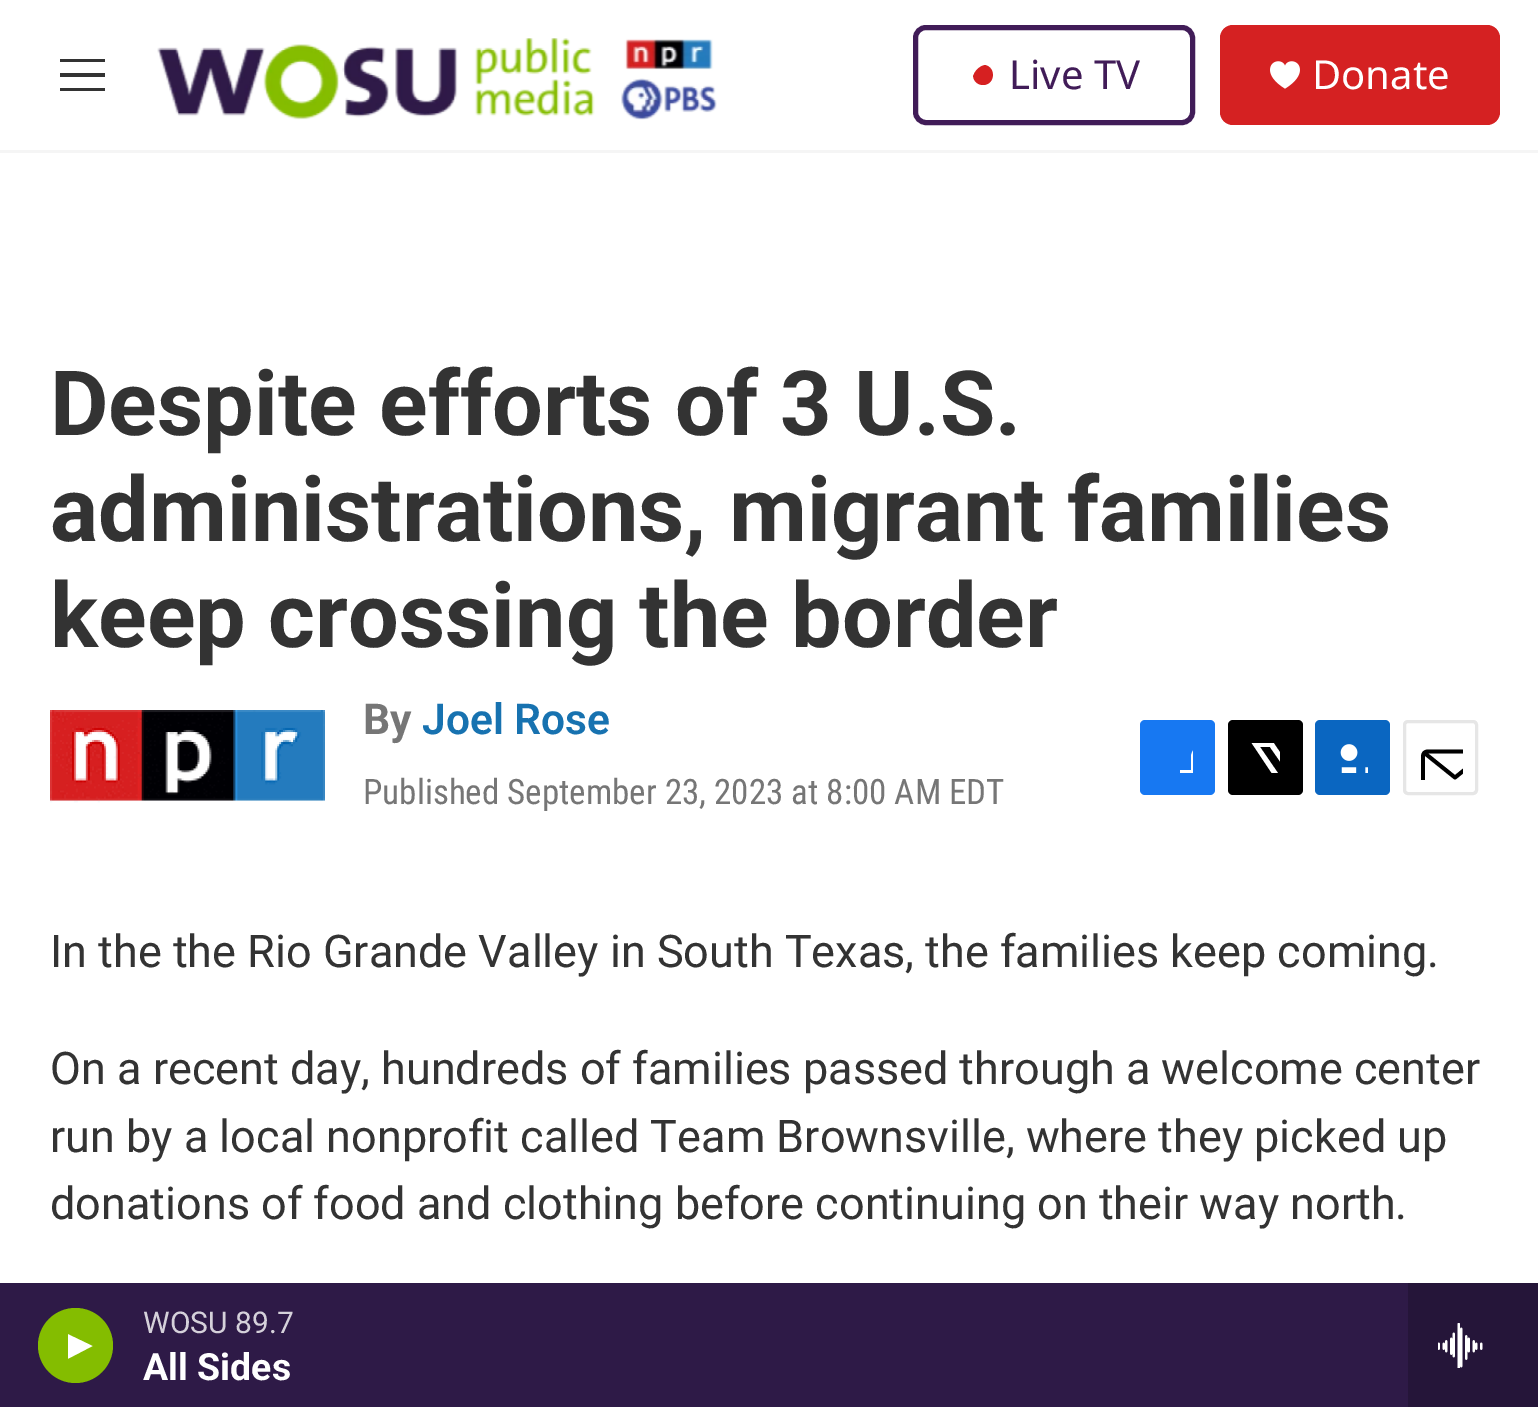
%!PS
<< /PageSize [1538 1407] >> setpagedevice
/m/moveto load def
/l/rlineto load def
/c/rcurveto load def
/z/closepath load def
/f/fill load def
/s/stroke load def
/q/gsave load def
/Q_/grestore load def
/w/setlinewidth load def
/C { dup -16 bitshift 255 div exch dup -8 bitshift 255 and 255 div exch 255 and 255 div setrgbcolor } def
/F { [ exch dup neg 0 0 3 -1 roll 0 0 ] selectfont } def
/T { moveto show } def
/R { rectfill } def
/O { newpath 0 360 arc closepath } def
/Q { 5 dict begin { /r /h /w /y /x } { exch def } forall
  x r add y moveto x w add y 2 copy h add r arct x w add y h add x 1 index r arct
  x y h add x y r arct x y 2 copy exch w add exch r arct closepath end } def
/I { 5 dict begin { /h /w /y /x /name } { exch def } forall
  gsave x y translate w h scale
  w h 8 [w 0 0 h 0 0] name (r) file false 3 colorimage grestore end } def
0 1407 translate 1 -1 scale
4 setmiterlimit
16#FFFFFF C
0 0 1538 1407 R
16#F5F5F5 C
0 150 1538 3 R
16#333333 C
60 77 m 0 -4 l 45 0 l 0 4 l z 60 62 m 0 -3 l 45 0 l 0 3 l z 60 91 m 0 -3 l 45 0 l 0 3 l z eofill
(1.rgb) 157 38 560 82 I
16#411C58 C
5 w
915.5 27.5 277 95 10.5 Q s
16#D62021 C
985 65 m 11.5 2.5 10 20 -2 20 c -4.5 0 -8.5 -3 -9.5 -7 c -.5 -2 l 1 -2 l 2 -4.5 6 -8 11 -9 c z f
/NotoSans-Regular 40 F
16#411C58 C
(Live TV) 1009 89 T
16#D52122 C
1220 25 280 100 13 Q f
(2.rgb) 1270 61 30 28 I
16#FFFFFF C
(Donate) 1312 89 T
16#2E1A47 C
0 1283 1408 124 R
16#84BD00 C
75.5 1345.5 37.5 O f
q
68 1333 25 27 rectclip
16#FFFFFF C
67.5 1334 m 25 12 l -25 13 l z f
Q_
/Roboto-Regular 30 F
16#D5D1DA C
(WOSU 89.7) 143 1333 T
/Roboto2-Bold 37.5 F
16#FFFFFF C
(All Sides) 143 1380 T
16#251539 C
1408 1283 130 124 R
(3.rgb) 1438 1323 45 45 I
/Roboto-Bold 90 F
16#333333 C
(Despite efforts of 3 U.S.) 50 435 T
(administrations, migrant families) 50 541 T
(keep crossing the border) 50 647 T
(4.rgb) 50 710 275 93 I
/Roboto-Bold 42.5 F
16#767676 C
(By) 363 734 T
/Roboto-SemiBold 42.5 F
16#1772B0 C
(Joel Rose) 422 734 T
/RobotoCondensed-Regular 35 F
16#767676 C
(Published September 23, 2023 at 8:00 AM EDT) 363 804 T
16#1778F2 C
1140 720 75 75 5 Q f
q
1163 743 30 30 rectclip
16#FFFFFF C
1204 795 m -13 0 l 0 -12 l -11 0 l 0 -13 l 11 0 l 0 -14 l 2 -12 13 -14 24 -12 c 0 11 l -14 0 -11 4 -11 15 c 11 0 l 0 6 l -1 7 l -10 0 l z f
Q_
16#000000 C
1228 720 75 75 5 Q f
q
1250 743 30 30 rectclip
16#FFFFFF C
1294 774 m 9 13 l 0 2 0 5 -1 6 c -32 -46 l -10 0 l 33 48 l -6 0 l -5 -7 l -6 7 l -6 0 l 9 -11 l -28 -42 l 22 0 l 19 28 l 11 -13 l 0 7 l z f
Q_
16#0A66C1 C
1315 720 75 75 5 Q f
(5.rgb) 1340 744 28 29 I
16#E6E6E6 C
3 w
1404.5 721.5 72 72 3.5 Q s
q
1418 735 45 45 rectclip
16#000000 C
3.8 w
1 setlinecap
1 setlinejoin
1487 790 m 0 2.5 -2 4.5 -4.5 4.5 c -55 0 l -2.5 0 -4.5 -2 -4.5 -4.5 c 0 -34 l 0 -2.5 2 -4.5 4.5 -4.5 c 55 0 l 2.5 0 4.5 2 4.5 4.5 c z 1485.5 753 m -30.5 24.5 l -30.5 -24.5 l s
Q_
/Roboto-Regular 45 F
16#333333 C
(In the the Rio Grande Valley in South Texas, the families keep coming.) 50 967 T
(On a recent day, hundreds of families passed through a welcome center) 50 1084 T
(run by a local nonprofit called Team Brownsville, where they picked up) 50 1152 T
(donations of food and clothing before continuing on their way north.) 50 1219 T
showpage
